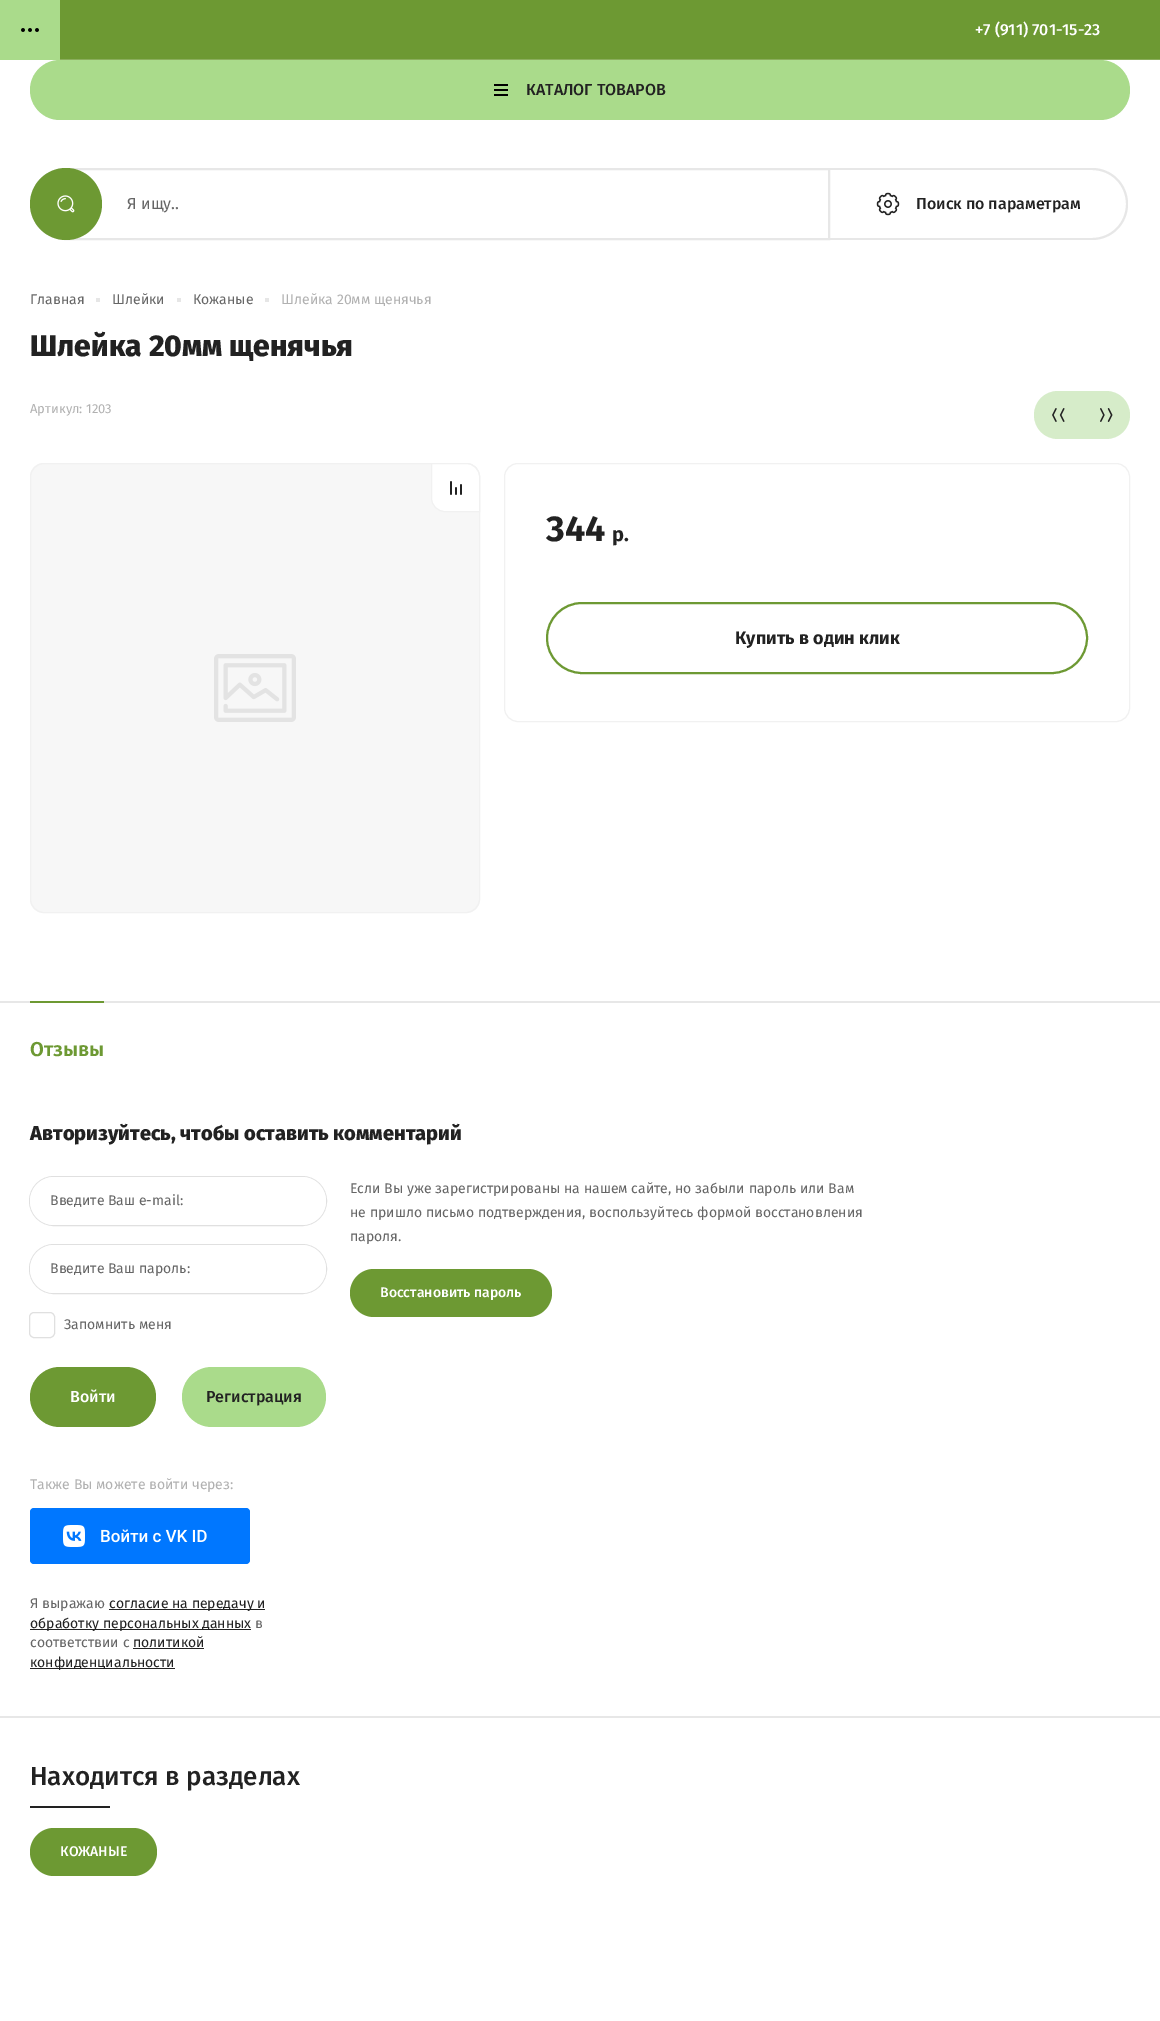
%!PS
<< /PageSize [1160 2021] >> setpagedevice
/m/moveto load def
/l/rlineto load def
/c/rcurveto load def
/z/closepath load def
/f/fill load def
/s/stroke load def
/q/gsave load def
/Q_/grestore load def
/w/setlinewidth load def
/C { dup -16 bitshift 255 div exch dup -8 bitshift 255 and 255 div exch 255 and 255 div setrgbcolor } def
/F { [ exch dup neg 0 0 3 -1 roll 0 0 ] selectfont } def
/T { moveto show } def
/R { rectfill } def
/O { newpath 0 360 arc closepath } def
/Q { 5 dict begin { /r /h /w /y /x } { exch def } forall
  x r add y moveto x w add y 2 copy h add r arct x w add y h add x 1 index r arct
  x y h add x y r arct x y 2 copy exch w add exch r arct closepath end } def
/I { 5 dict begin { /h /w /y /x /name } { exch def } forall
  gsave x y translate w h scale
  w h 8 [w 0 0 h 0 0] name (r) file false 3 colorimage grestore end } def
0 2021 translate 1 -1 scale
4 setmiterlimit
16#FFFFFF C
0 0 1160 2021 R
16#6D9933 C
60 0 1100 59 R
16#8AAD5C C
60 59 1100 1 R
16#AADB8B C
0 0 60 60 R
(1.rgb) 21 28 18 4 I
/FiraSans-Medium 16 F
16#FFFFFF C
(+7 \(911\) 701-15-23) 975 35 T
16#AADB8B C
30 60 1100 60 30 Q f
(2.rgb) 494 84 14 12 I
16#222222 C
(КАТАЛОГ ТОВАРОВ) 526 95 T
16#E7E7E7 C
2 w
66 169 m 763 0 l 0 70 l -763 0 l -19.5 0 -35 -15.5 -35 -35 c 0 -19.5 15.5 -35 35 -35 c z s
16#6D9933 C
66 204 36 O f
(3.rgb) 57 195 18 18 I
/FiraSans-Regular 16 F
16#666666 C
(Я ищу..) 127 209 T
16#E7E7E7 C
830 168 m 262 0 l 20 0 36 16 36 36 c 0 20 -16 36 -36 36 c -262 0 l z 830 170 m 262 0 l 19 0 34 15 34 34 c 0 19 -15 34 -34 34 c -262 0 l z eofill
(4.rgb) 876 192 24 24 I
/FiraSans-Medium 16 F
16#222222 C
(Поиск по параметрам) 916 209 T
/FiraSans-Regular 14 F
16#666666 C
(Главная) 30 304 T
16#E6E6E6 C
96 298 4 4 R
16#666666 C
(Шлейки) 112 304 T
16#E6E6E6 C
177 298 4 4 R
16#666666 C
(Кожаные) 193 304 T
16#E6E6E6 C
265 298 4 4 R
16#B1B1B1 C
(Шлейка 20мм щенячья) 281 304 T
/FiraSans-ExtraBold 30 F
16#222222 C
(Шлейка 20мм щенячья) 30 356 T
/FiraSans-Regular 13 F
16#B1B1B1 C
(Артикул: 1203) 30 413 T
16#D6ECC9 C
1058 391 m 24 0 l 0 48 l -24 0 l -13.5 0 -24 -10.5 -24 -24 c 0 -13.5 10.5 -24 24 -24 c z f
(5.rgb) 1052 408 13 14 I
1082 391 m 24 0 l 13.5 0 24 10.5 24 24 c 0 13.5 -10.5 24 -24 24 c -24 0 l z f
(6.rgb) 1100 408 13 14 I
16#F7F7F7 C
30 463 450 450 14 Q f
(7.rgb) 214 654 82 68 I
16#F1F1F1 C
1 w
30.5 463.5 449 449 13.5 Q s
16#FFFFFF C
431.5 463.5 m 34.5 0 l 7.5 0 13.5 6 13.5 13.5 c 0 34.5 l -34.5 0 l -7.5 0 -13.5 -6 -13.5 -13.5 c z q f Q_
16#F1F1F1 C
s
(8.rgb) 450 481 12 14 I
504.5 463.5 625 258 13.5 Q s
/FiraSans-Bold 36 F
16#222222 C
(344) 546 541 T
/FiraSans-Bold 20 F
(р.) 612 541 T
16#6D9933 C
2 w
547 603 540 70 35 Q s
/FiraSans-Bold 18 F
16#222222 C
(Купить в один клик) 735 644 T
16#E7E7E7 C
0 1001 1160 2 R
16#6D9933 C
30 1001 74 2 R
/FiraSans-SemiBold 20 F
(Отзывы) 30 1056 T
/FiraSans-ExtraBold 20 F
16#222222 C
(Авторизуйтесь, чтобы оставить комментарий) 30 1140 T
16#E0E0E0 C
1 w
29.5 1176.5 297 49 24.5 Q s
16#FFFFFF C
30 1177 296 48 24 Q f
/FiraSans-Regular 14 F
16#666666 C
(Введите Ваш e-mail:) 50 1205 T
16#E0E0E0 C
29.5 1244.5 297 49 24.5 Q s
16#FFFFFF C
30 1245 296 48 24 Q f
16#666666 C
(Введите Ваш пароль:) 50 1273 T
16#E0E0E0 C
29.5 1312.5 25 25 4.5 Q s
16#666666 C
(Запомнить меня) 64 1329 T
16#6D9933 C
30 1367 126 60 30 Q f
/FiraSans-Medium 16 F
16#FFFFFF C
(Войти) 70 1402 T
16#AADB8B C
182 1367 144 60 30 Q f
16#222222 C
(Регистрация) 206 1402 T
/FiraSans-Regular 14 F
16#666666 C
(Если Вы уже зарегистрированы на нашем сайте, но забыли пароль или Вам) 350 1193 T
(не пришло письмо подтверждения, воспользуйтесь формой восстановления) 350 1217 T
(пароля.) 350 1241 T
16#6D9933 C
350 1269 202 48 24 Q f
/FiraSans-Medium 14 F
16#FFFFFF C
(Восстановить пароль) 380 1297 T
/FiraSans-Regular 14 F
16#B1B1B1 C
(Также Вы можете войти через:) 30 1489 T
16#0077FF C
30 1508 220 56 4 Q f
(9.rgb) 63 1525 144 22 I
16#666666 C
(Я выражаю) 30 1608 T
16#222222 C
109 1609 156 1 R
(согласие на передачу и) 109 1608 T
30 1629 221 1 R
(обработку персональных данных) 30 1628 T
16#666666 C
(в) 255 1628 T
(соответствии с) 30 1647 T
16#222222 C
(политикой) 133 1647 T
133 1648 71 1 R
30 1668 145 1 R
(конфиденциальности) 30 1667 T
16#E7E7E7 C
0 1716 1160 2 R
/FiraSans-Medium 26 F
16#222222 C
(Находится в разделах) 30 1785 T
30 1806 80 2 R
16#6D9933 C
30 1828 127 48 24 Q f
/FiraSans-Medium 14 F
16#FFFFFF C
(КОЖАНЫЕ) 60 1856 T
showpage
